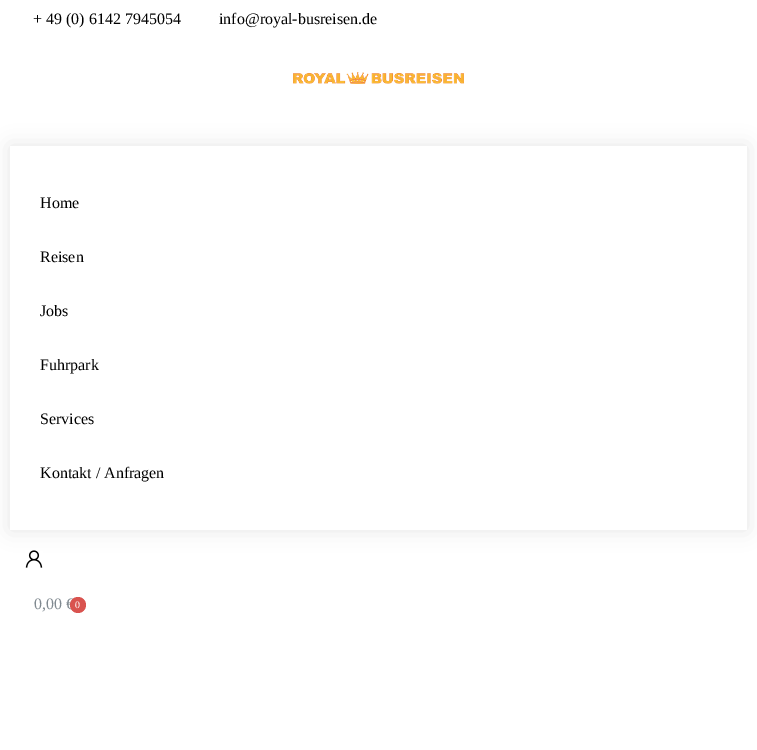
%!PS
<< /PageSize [757 750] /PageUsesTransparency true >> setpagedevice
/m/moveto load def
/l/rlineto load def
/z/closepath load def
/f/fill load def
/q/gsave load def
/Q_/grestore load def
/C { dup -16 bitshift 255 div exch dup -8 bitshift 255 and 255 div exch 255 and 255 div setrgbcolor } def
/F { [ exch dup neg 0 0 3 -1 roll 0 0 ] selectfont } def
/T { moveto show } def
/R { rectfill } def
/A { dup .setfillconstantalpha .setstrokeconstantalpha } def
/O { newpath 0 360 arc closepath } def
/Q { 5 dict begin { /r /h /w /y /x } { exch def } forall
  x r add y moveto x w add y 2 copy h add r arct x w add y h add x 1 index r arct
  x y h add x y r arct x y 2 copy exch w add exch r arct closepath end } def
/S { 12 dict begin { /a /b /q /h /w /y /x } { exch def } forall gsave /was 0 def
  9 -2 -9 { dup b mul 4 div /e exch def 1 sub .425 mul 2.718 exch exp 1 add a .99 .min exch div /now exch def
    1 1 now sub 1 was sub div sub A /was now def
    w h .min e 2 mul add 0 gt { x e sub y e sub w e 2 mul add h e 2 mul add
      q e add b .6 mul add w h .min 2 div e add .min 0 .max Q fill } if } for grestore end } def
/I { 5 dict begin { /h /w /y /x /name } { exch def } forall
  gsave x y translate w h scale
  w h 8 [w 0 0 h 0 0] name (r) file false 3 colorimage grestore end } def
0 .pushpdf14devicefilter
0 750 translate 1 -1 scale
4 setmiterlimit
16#FFFFFF C
0 0 757 750 R
/LiberationSerif-Regular 16 F
16#000000 C
(+ 49 \(0\) 6142 7945054) 33 24 T
(info@royal-busreisen.de) 219 24 T
(1.rgb) 293 72 171 12 I
q
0 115 m 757 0 l 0 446 l -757 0 l z 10 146 m 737 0 l 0 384 l -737 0 l z eoclip newpath
10 146 737 384 0 10 .1 S
Q_
(Home) 40 208 T
(Reisen) 40 262 T
(Jobs) 40 316 T
(Fuhrpark) 40 370 T
(Services) 40 424 T
(Kontakt / Anfragen) 40 478 T
(2.rgb) 25 550 18 18 I
16#818A91 C
(0,00 €) 34 609 T
16#D9534F C
78 605 8 O f
/LiberationSerif-Regular 10 F
16#FFFFFF C
(0) 75 608 T
.poppdf14devicefilter showpage
